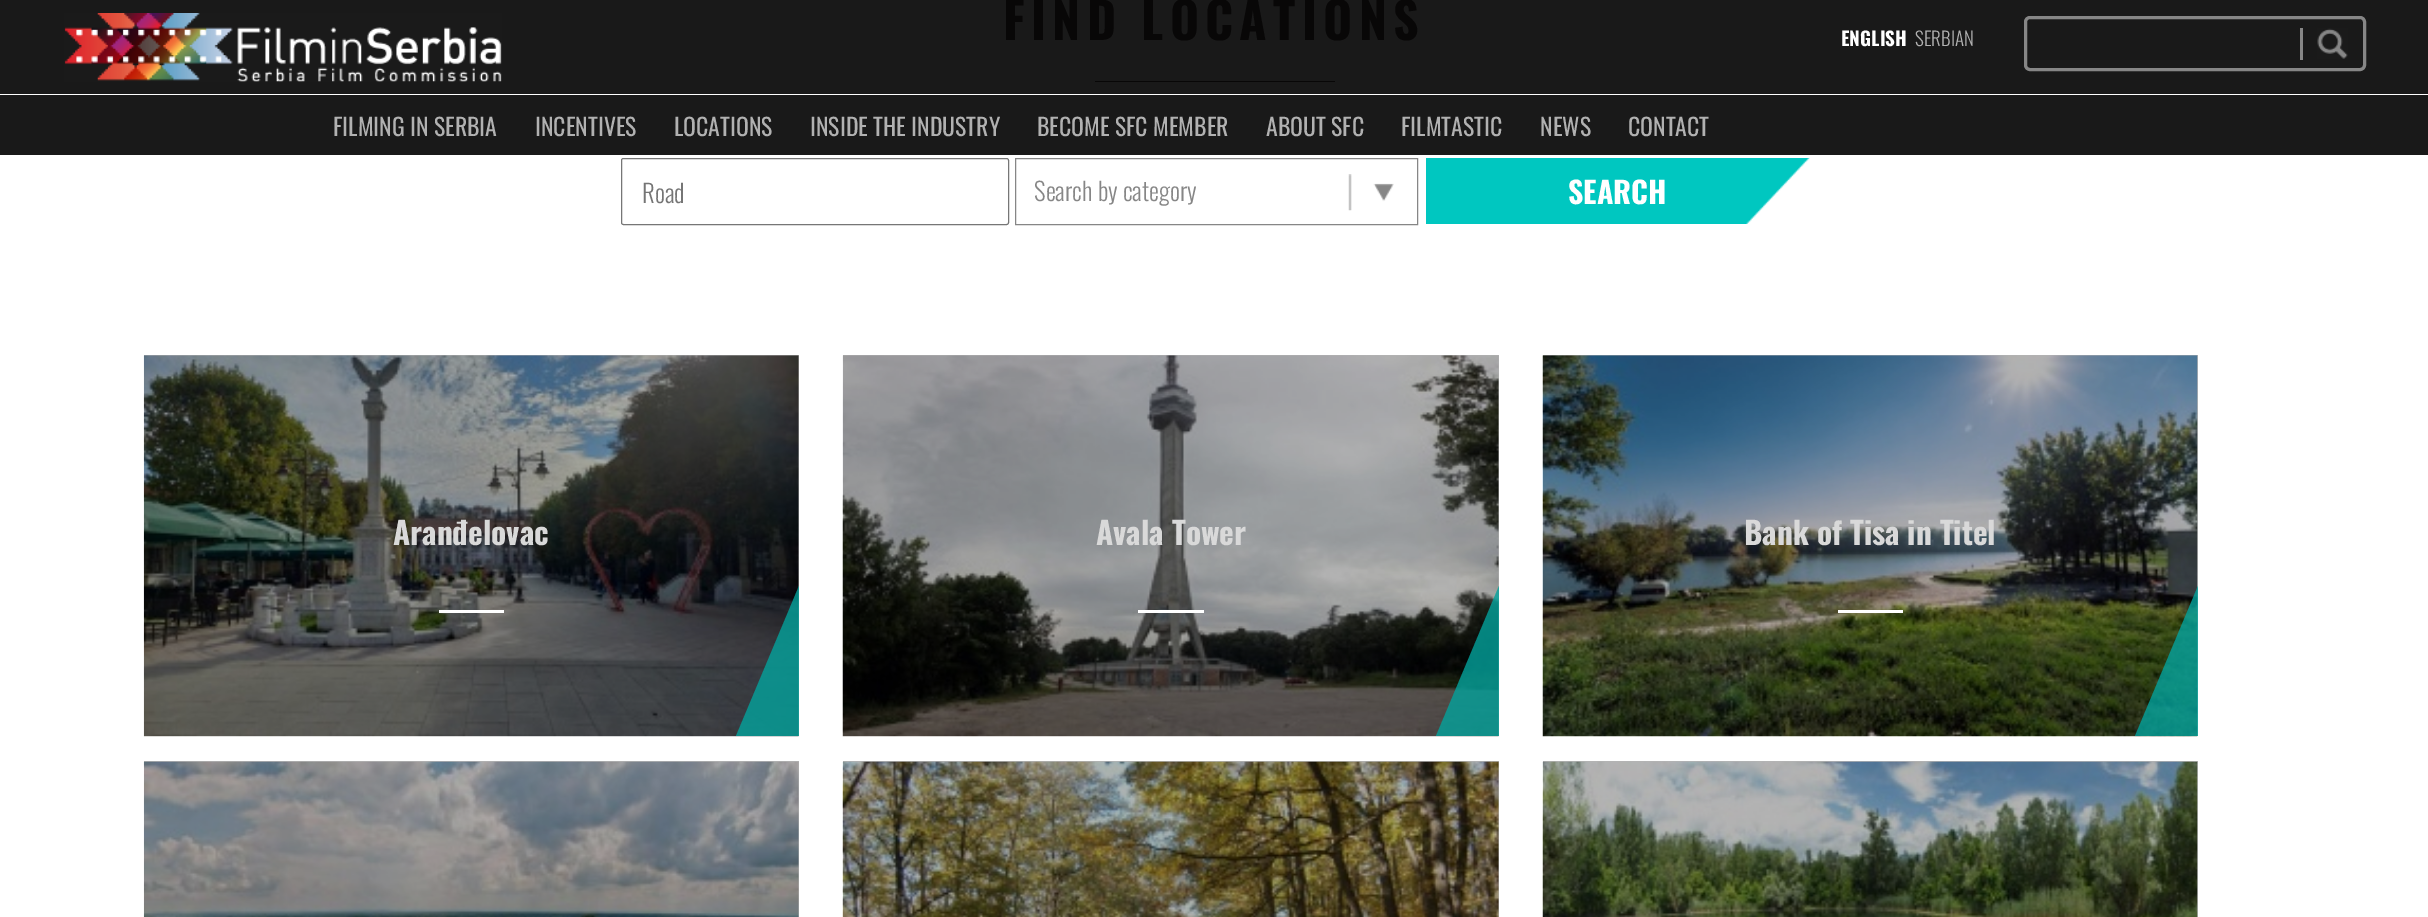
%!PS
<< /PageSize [2428 917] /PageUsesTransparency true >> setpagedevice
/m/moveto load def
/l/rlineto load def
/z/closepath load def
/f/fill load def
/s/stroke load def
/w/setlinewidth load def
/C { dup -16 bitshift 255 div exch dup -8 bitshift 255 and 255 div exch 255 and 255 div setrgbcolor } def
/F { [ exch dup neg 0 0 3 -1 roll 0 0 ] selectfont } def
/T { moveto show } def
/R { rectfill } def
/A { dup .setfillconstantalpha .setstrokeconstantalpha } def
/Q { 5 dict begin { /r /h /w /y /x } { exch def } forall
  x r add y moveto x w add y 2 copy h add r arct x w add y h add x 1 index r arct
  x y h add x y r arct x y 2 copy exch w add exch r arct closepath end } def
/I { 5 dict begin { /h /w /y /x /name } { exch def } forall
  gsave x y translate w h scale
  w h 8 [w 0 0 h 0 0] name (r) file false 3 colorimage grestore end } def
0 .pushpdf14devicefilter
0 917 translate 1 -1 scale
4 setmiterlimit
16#FFFFFF C
0 0 2428 917 R
16#191919 C
0 0 2428 155 R
16#B3B3B3 C
1543 761 655 156 R
843 761 656 156 R
144 761 655 156 R
1543 355 655 381 R
843 355 656 381 R
144 355 655 381 R
/Oswald-Bold 50 F
16#080707 C
1003 40 m 6.25 0 (FIND LOCATIONS) ashow
1095 81 240 1 R
16#767676 C
621.5 158.5 387 66 2 Q s
/Oswald-Light 25 F
16#757575 C
(Road) 642 203 T
(1.rgb) 1348 174 46 37 I
16#868686 C
1015.5 158.5 402 66 rectstroke
(Search by category) 1034 201 T
16#00C7C0 C
1426 158 384 66 R
(2.rgb) 1746 158 64 66 I
/Oswald-Bold 30 F
16#FFFFFF C
(SEARCH) 1568 204 T
(3.rgb) 143 355 656 382 I
/Oswald-Bold 31.25 F
16#D9D9D9 C
(Aranđelovac) 393 545 T
16#FFFFFF C
439 610 65 3 R
0.8 A
16#03A29C C
799 736 m -63 0 l 63 -150 l z f
1 A
(4.rgb) 842 355 657 382 I
16#D9D9D9 C
(Avala Tower) 1096 545 T
16#FFFFFF C
1138 610 66 3 R
0.8 A
16#03A29C C
1499 736 m -63 0 l 63 -150 l z f
1 A
(5.rgb) 1542 355 656 382 I
16#D9D9D9 C
(Bank of Tisa in Titel) 1744 545 T
16#FFFFFF C
1838 610 65 3 R
0.8 A
16#03A29C C
2198 736 m -63 0 l 63 -150 l z f
1 A
(6.rgb) 143 761 656 156 I
(7.rgb) 842 761 657 156 I
(8.rgb) 1542 761 656 156 I
(9.rgb) 64 13 438 69 I
/Oswald-Bold 19 F
16#FFFFFF C
(ENGLISH) 1841 46 T
/Oswald-Light 19 F
16#B1B1B1 C
(SERBIAN) 1915 46 T
16#868686 C
3 w
2025.5 17.5 339 52 4.5 Q s
(10.rgb) 2317 28 31 31 I
2300 28 3 32 R
16#FFFFFF C
0 94 2428 1 R
/Oswald-Regular 23.75 F
16#B1B1B1 C
(FILMING IN SERBIA) 333 136 T
(INCENTIVES) 535 136 T
(LOCATIONS) 674 136 T
(INSIDE THE INDUSTRY) 810 136 T
(BECOME SFC MEMBER) 1037 136 T
(ABOUT SFC) 1266 136 T
(FILMTASTIC) 1401 136 T
(NEWS) 1540 136 T
(CONTACT) 1628 136 T
.poppdf14devicefilter showpage
